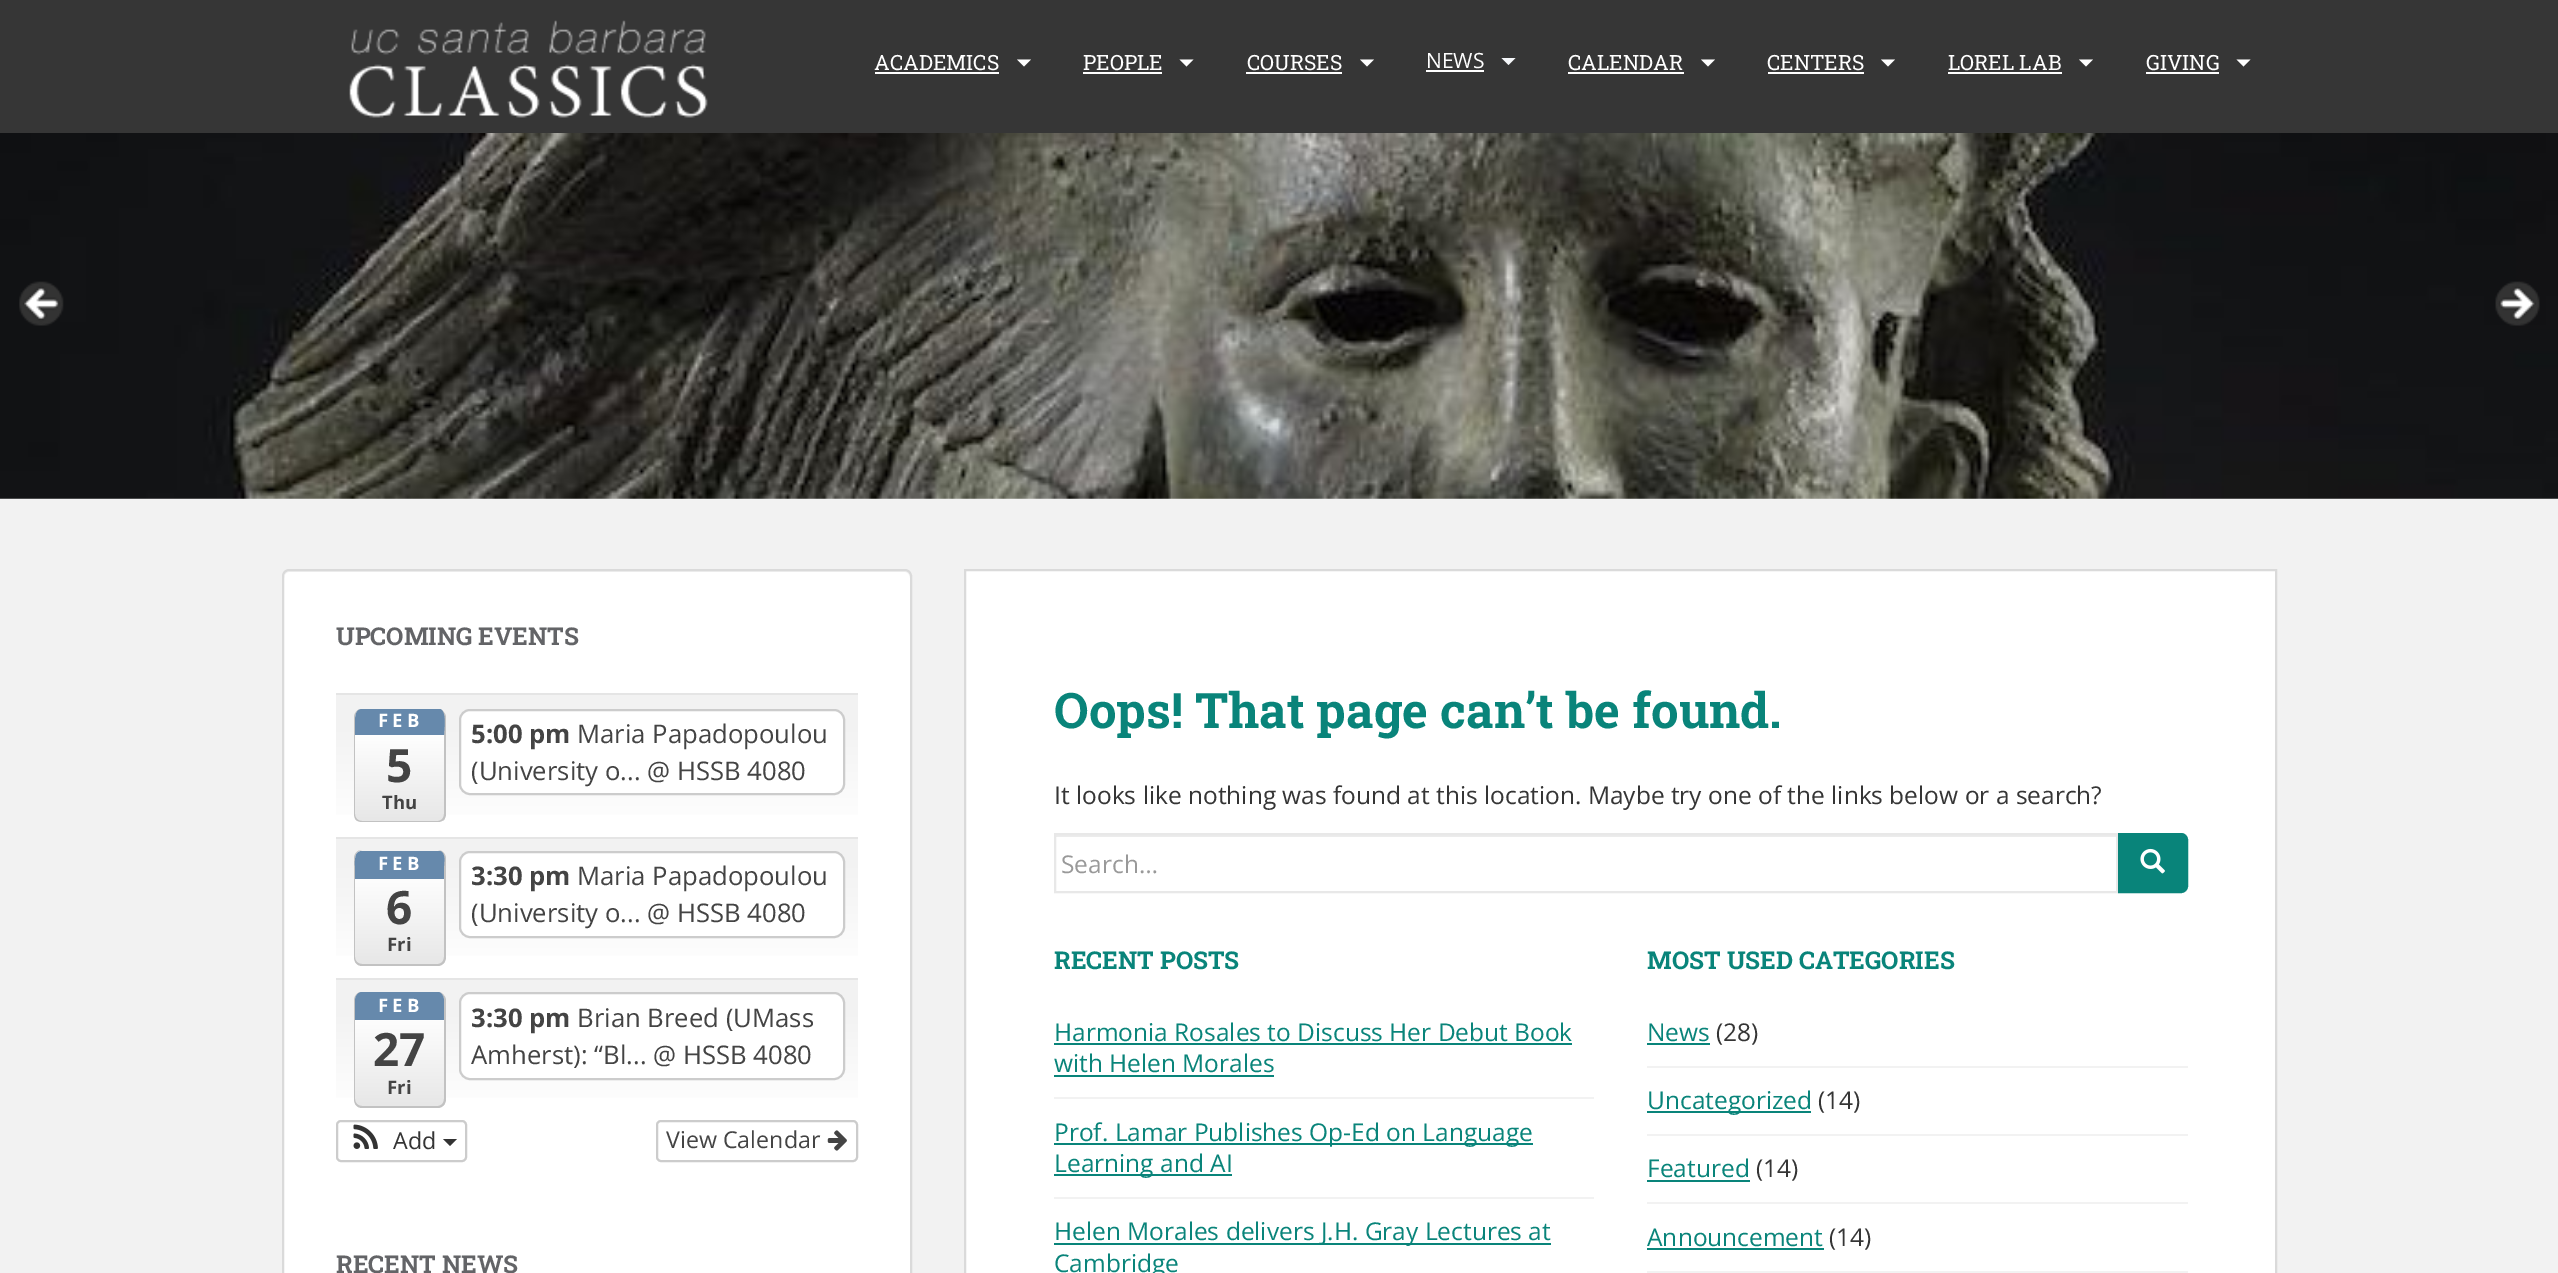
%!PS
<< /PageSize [2558 1273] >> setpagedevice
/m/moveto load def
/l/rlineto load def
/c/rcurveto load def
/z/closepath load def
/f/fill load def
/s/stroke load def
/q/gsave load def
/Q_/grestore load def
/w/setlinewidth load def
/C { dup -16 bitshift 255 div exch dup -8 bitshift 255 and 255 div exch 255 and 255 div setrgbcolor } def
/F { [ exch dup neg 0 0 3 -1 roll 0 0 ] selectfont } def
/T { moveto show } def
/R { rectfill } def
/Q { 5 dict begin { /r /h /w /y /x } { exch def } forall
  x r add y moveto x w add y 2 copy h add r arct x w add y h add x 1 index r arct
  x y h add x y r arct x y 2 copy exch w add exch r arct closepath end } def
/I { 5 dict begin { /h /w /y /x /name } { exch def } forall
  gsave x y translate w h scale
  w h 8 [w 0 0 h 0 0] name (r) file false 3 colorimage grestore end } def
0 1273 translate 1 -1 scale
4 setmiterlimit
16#F2F2F2 C
0 0 2558 1273 R
16#363636 C
0 0 2558 133 R
(1.rgb) 349 20 359 98 I
/RobotoSlab-Regular 21 F
16#FFFFFF C
(ACADEMICS) 874 70 T
875 72 124 2 R
1017 59.5 m 14 0 l -7 7 l z f
(PEOPLE) 1083 70 T
1083 72 79 2 R
1179.5 59.5 m 14 0 l -7 7 l z f
(COURSES) 1247 70 T
1246 72 96 2 R
1360 59.5 m 14 0 l -7 7 l z f
/OpenSans-Regular 21 F
(NEWS) 1426 68 T
1426 70 58 2 R
16#F5F7FA C
1501.5 58 m 14 0 l -7 7 l z f
/RobotoSlab-Regular 21 F
16#FFFFFF C
(CALENDAR) 1568 70 T
1568 72 116 2 R
1701 59.5 m 14 0 l -7 7 l z f
(CENTERS) 1767 70 T
1768 72 96 2 R
1881 59.5 m 14 0 l -7 7 l z f
(LOREL LAB) 1948 70 T
1948 72 114 2 R
2079 59.5 m 14 0 l -7 7 l z f
(GIVING) 2146 70 T
2146 72 73 2 R
2236.5 59.5 m 14 0 l -7 7 l z f
(2.rgb) 0 133 2558 366 I
(3.rgb) 19 281 45 45 I
(4.rgb) 2495 281 45 45 I
282 569 630 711 7 Q f
16#F2F2F2 C
289 572 m 616 0 l 3 0 5 3 5 6 c 0 -3 -1 -7 -5 -7 c -616 0 l -4 0 -5 4 -5 7 c 0 -3 2 -6 5 -6 c z f
16#DADADA C
2 w
283 570 628 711 6 Q s
/RobotoSlab-Bold 24.5 F
16#636467 C
(UPCOMING EVENTS) 336 645 T
q 336 695 m 522 0 l 0 120 l -522 0 l z clip newpath
<< /ShadingType 2 /ColorSpace /DeviceRGB /Coords [597 695 597 837] /Extend [true true] /Function << /FunctionType 3 /Domain [0 1] /Functions [<< /FunctionType 2 /Domain [0 1] /C0 [.949 .949 .949] /C1 [.949 .949 .949] /N 1 >> << /FunctionType 2 /Domain [0 1] /C0 [.949 .949 .949] /C1 [1 1 1] /N 1 >>] /Bounds [.18] /Encode [0 1 0 1] >> >> shfill Q_
16#E5E5E5 C
336 693 522 2 R
q
354 709 92 114 9 Q clip newpath
q 355 709 m 90 0 l 0 112 l -90 0 l z clip newpath
<< /ShadingType 2 /ColorSpace /DeviceRGB /Coords [400 709 400 821] /Extend [true true] /Function << /FunctionType 3 /Domain [0 1] /Functions [<< /FunctionType 2 /Domain [0 1] /C0 [1 1 1] /C1 [1 1 1] /N 1 >> << /FunctionType 2 /Domain [0 1] /C0 [1 1 1] /C1 [.906 .906 .906] /N 1 >>] /Bounds [.21] /Encode [0 1 0 1] >> >> shfill Q_
Q_
16#C2C2C2 C
362 709 m 76 0 l 4 0 8 4 8 9 c 0 96 l 0 5 -4 8 -8 8 c -76 0 l -5 0 -8 -3 -8 -8 c 0 -96 l 0 -5 3 -9 8 -9 c z 362 709 m 76 0 l 3 0 6 4 6 9 c 0 96 l 0 4 -3 7 -6 7 c -76 0 l -4 0 -7 -3 -7 -7 c 0 -96 l 0 -5 3 -9 7 -9 c z eofill
16#6689AC C
362 709 m 78 0 l 7 2 4 21 4 26 c -89 0 l 0 -12 l 0 -5 0 -14 7 -14 c z f
/OpenSans-Bold 18.5 F
16#FFFFFF C
378 727 m 4 0 (FEB) ashow
/OpenSans-Bold 46 F
16#444444 C
(5) 386 782 T
/OpenSans-Bold 18.5 F
(Thu) 382 809 T
16#FFFFFF C
460 710 384 84 10 Q q f Q_
16#CCCCCC C
s
/OpenSans-Bold 25.7 F
16#444444 C
(5:00 pm) 471 743 T
/OpenSans-Regular 25.7 F
(Maria Papadopoulou) 577 743 T
(\(University o... @ HSSB 4080) 471 780 T
q 336 839 m 522 0 l 0 117 l -522 0 l z clip newpath
<< /ShadingType 2 /ColorSpace /DeviceRGB /Coords [597 838 597 978] /Extend [true true] /Function << /FunctionType 3 /Domain [0 1] /Functions [<< /FunctionType 2 /Domain [0 1] /C0 [.949 .949 .949] /C1 [.949 .949 .949] /N 1 >> << /FunctionType 2 /Domain [0 1] /C0 [.949 .949 .949] /C1 [1 1 1] /N 1 >>] /Bounds [.18] /Encode [0 1 0 1] >> >> shfill Q_
16#E5E5E5 C
336 837 522 2 R
q
354 851 92 115 9 Q clip newpath
q 355 851 m 90 0 l 0 113 l -90 0 l z clip newpath
<< /ShadingType 2 /ColorSpace /DeviceRGB /Coords [400 851 400 964] /Extend [true true] /Function << /FunctionType 3 /Domain [0 1] /Functions [<< /FunctionType 2 /Domain [0 1] /C0 [1 1 1] /C1 [1 1 1] /N 1 >> << /FunctionType 2 /Domain [0 1] /C0 [1 1 1] /C1 [.906 .906 .906] /N 1 >>] /Bounds [.2] /Encode [0 1 0 1] >> >> shfill Q_
Q_
16#C2C2C2 C
362 850 m 76 0 l 4 0 8 4 8 9 c 0 98 l 0 5 -4 9 -8 9 c -76 0 l -5 0 -8 -4 -8 -9 c 0 -98 l 0 -5 3 -9 8 -9 c z 362 850 m 76 0 l 3 0 6 4 6 9 c 0 98 l 0 4 -3 7 -6 7 c -76 0 l -4 0 -7 -3 -7 -7 c 0 -98 l 0 -5 3 -9 7 -9 c z eofill
16#6689AC C
362 851 m 78 0 l 6 2 4 11 4 15 c 0 13 l -89 0 l 0 -13 l 0 -5 -1 -15 7 -15 c z f
/OpenSans-Bold 18.5 F
16#FFFFFF C
378 870 m 4 0 (FEB) ashow
/OpenSans-Bold 46 F
16#444444 C
(6) 386 924 T
/OpenSans-Bold 18.5 F
(Fri) 387 951 T
16#FFFFFF C
460 852 384 85 10 Q q f Q_
16#CCCCCC C
s
/OpenSans-Bold 25.7 F
16#444444 C
(3:30 pm) 471 885 T
/OpenSans-Regular 25.7 F
(Maria Papadopoulou) 577 885 T
(\(University o... @ HSSB 4080) 471 922 T
q 336 980 m 522 0 l 0 118 l -522 0 l z clip newpath
<< /ShadingType 2 /ColorSpace /DeviceRGB /Coords [597 980 597 1120] /Extend [true true] /Function << /FunctionType 3 /Domain [0 1] /Functions [<< /FunctionType 2 /Domain [0 1] /C0 [.949 .949 .949] /C1 [.949 .949 .949] /N 1 >> << /FunctionType 2 /Domain [0 1] /C0 [.949 .949 .949] /C1 [1 1 1] /N 1 >>] /Bounds [.18] /Encode [0 1 0 1] >> >> shfill Q_
16#E5E5E5 C
336 978 522 2 R
q
354 992 92 116 9 Q clip newpath
q 355 992 m 90 0 l 0 114 l -90 0 l z clip newpath
<< /ShadingType 2 /ColorSpace /DeviceRGB /Coords [400 992 400 1106] /Extend [true true] /Function << /FunctionType 3 /Domain [0 1] /Functions [<< /FunctionType 2 /Domain [0 1] /C0 [1 1 1] /C1 [1 1 1] /N 1 >> << /FunctionType 2 /Domain [0 1] /C0 [1 1 1] /C1 [.906 .906 .906] /N 1 >>] /Bounds [.2] /Encode [0 1 0 1] >> >> shfill Q_
Q_
16#C2C2C2 C
362 992 m 76 0 l 4 0 8 4 8 9 c 0 98 l 0 5 -4 9 -8 9 c -76 0 l -5 0 -8 -4 -8 -9 c 0 -98 l 0 -5 3 -9 8 -9 c z 362 992 m 76 0 l 3 0 6 4 6 9 c 0 98 l 0 4 -3 7 -6 7 c -76 0 l -4 0 -7 -3 -7 -7 c 0 -98 l 0 -5 3 -9 7 -9 c z eofill
16#6689AC C
362 992 m -4 0 -7 4 -7 9 c 0 19 l 89 0 l 0 -19 l 0 -5 -3 -9 -6 -9 c z f
/OpenSans-Bold 18.5 F
16#FFFFFF C
378 1012 m 4 0 (FEB) ashow
/OpenSans-Bold 46 F
16#444444 C
(27) 373 1066 T
/OpenSans-Bold 18.5 F
(Fri) 387 1094 T
16#FFFFFF C
460 993 384 86 10 Q q f Q_
16#CCCCCC C
s
/OpenSans-Bold 25.7 F
16#444444 C
(3:30 pm) 471 1027 T
/OpenSans-Regular 25.7 F
(Brian Breed \(UMass) 577 1027 T
(Amherst\): “Bl... @ HSSB 4080) 471 1064 T
16#CCCCCC C
337 1121 129 40 4 Q s
(5.rgb) 353 1124 25 25 I
/OpenSans-Regular 23.25 F
16#353535 C
(Add) 393 1149 T
16#333333 C
443 1139 m 14 0 l -7 7 l z f
16#CCCCCC C
657 1121 200 40 4 Q s
16#444444 C
(View Calendar) 666 1148 T
(6.rgb) 827 1130 20 21 I
/RobotoSlab-Bold 24.5 F
16#636467 C
(RECENT NEWS) 336 1273 T
16#FFFFFF C
965 570 m 1311 0 l 0 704 l -1311 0 l z q f Q_
16#DADADA C
s
/RobotoSlab-Bold 49 F
16#09847A C
(Oops! That page can’t be found.) 1054 728 T
/OpenSans-Regular 24.5 F
16#353535 C
(It looks like nothing was found at this location. Maybe try one of the links below or a search?) 1054 804 T
16#ECECEC C
1055 835 1061 2 R
16#E8E8E8 C
1055 834 1062 58 rectstroke
16#999999 C
(Search…) 1061 873 T
16#09847A C
2119 834 m 62 0 l 3.5 0 6 2.5 6 6 c 0 46 l 0 3.5 -2.5 6 -6 6 c -62 0 l z q f Q_
s
(7.rgb) 2140 848 25 26 I
/RobotoSlab-Bold 24.5 F
(RECENT POSTS) 1054 969 T
16#F2F2F2 C
1054 1097 540 2 R
/OpenSans-Regular 24.5 F
16#09847A C
(Harmonia Rosales to Discuss Her Debut Book) 1054 1041 T
1054 1043 518 2 R
(with Helen Morales) 1054 1072 T
1054 1075 220 2 R
16#F2F2F2 C
1054 1197 540 2 R
16#09847A C
1054 1143 479 2 R
(Prof. Lamar Publishes Op-Ed on Language) 1054 1141 T
1054 1174 178 2 R
(Learning and AI) 1054 1172 T
1054 1243 497 2 R
(Helen Morales delivers J.H. Gray Lectures at) 1054 1240 T
(Cambridge) 1054 1272 T
/RobotoSlab-Bold 24.5 F
(MOST USED CATEGORIES) 1647 969 T
16#F2F2F2 C
1647 1066 541 2 R
/OpenSans-Regular 24.5 F
16#09847A C
(News) 1647 1041 T
1647 1043 63 2 R
16#353535 C
(\(28\)) 1716 1041 T
16#F2F2F2 C
1647 1134 541 2 R
16#09847A C
1647 1111 164 2 R
(Uncategorized) 1647 1109 T
16#353535 C
(\(14\)) 1818 1109 T
16#F2F2F2 C
1647 1202 541 2 R
16#09847A C
(Featured) 1647 1177 T
1647 1180 103 2 R
16#353535 C
(\(14\)) 1756 1177 T
16#F2F2F2 C
1647 1271 541 2 R
16#09847A C
(Announcement) 1647 1246 T
1647 1248 177 2 R
16#353535 C
(\(14\)) 1829 1246 T
showpage
